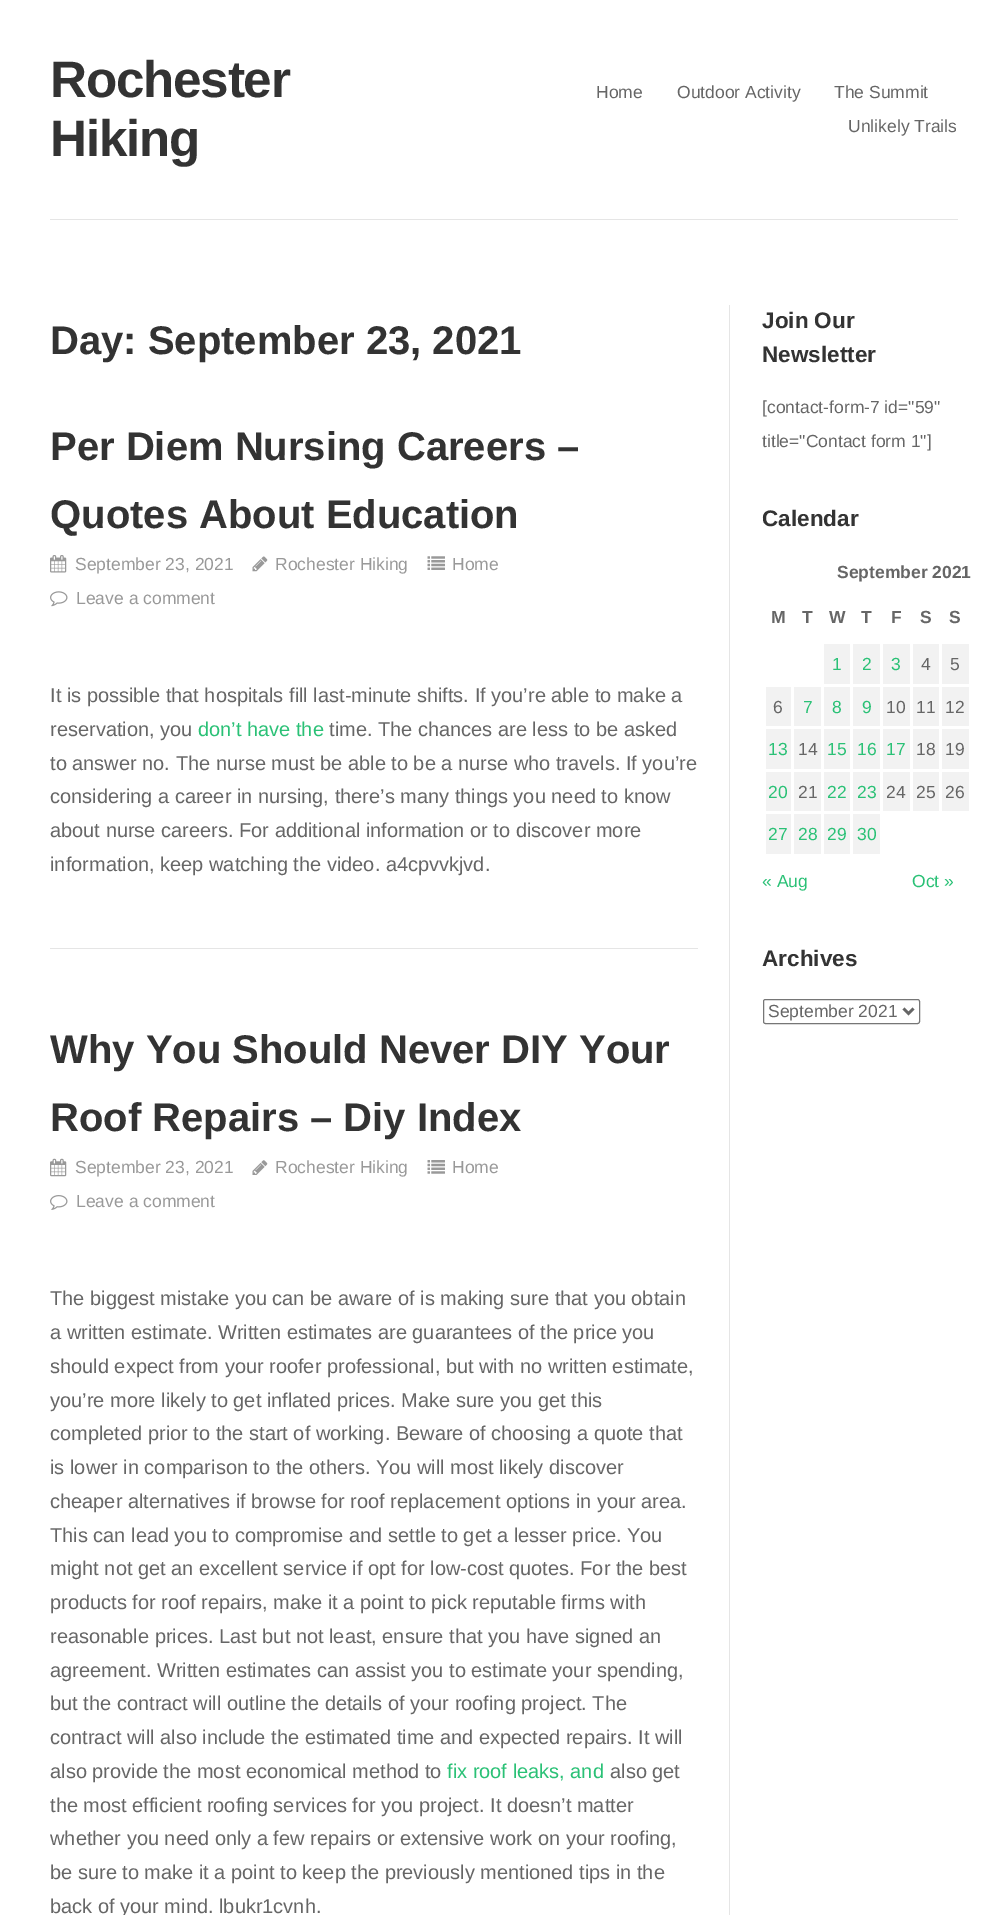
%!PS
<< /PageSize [1007 1915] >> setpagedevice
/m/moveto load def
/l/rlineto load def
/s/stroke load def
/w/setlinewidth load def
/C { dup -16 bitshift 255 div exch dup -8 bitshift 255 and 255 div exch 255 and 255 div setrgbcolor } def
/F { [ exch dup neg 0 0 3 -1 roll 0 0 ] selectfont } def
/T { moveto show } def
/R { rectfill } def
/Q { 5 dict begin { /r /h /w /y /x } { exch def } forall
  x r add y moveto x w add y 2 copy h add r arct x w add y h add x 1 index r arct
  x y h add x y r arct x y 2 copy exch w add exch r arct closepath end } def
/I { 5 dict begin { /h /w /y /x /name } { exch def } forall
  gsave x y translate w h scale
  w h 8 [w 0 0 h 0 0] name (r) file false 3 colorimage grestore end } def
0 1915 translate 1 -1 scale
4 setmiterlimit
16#FFFFFF C
0 0 1007 1915 R
16#E5E5E5 C
50 219 908 1 R
/LiberationSans-Bold 51.25 F
16#333333 C
50 97 m -1.25 0 (Rochester) ashow
50 156 m -1.25 0 (Hiking) ashow
/LiberationSans-Regular 17.5 F
16#666666 C
(Home) 596 98 T
(Outdoor Activity) 677 98 T
(The Summit) 834 98 T
(Unlikely Trails) 848 132 T
16#E5E5E5 C
729 305 1 1610 R
/LiberationSans-Bold 40 F
16#333333 C
(Day: September 23, 2021) 50 354 T
16#E5E5E5 C
50 948 648 1 R
16#333333 C
(Per Diem Nursing Careers –) 50 460 T
(Quotes About Education) 50 528 T
(1.rgb) 50 555 17 18 I
/LiberationSans-Regular 17.5 F
16#999999 C
(September 23, 2021) 75 570 T
(2.rgb) 252 556 16 16 I
(Rochester Hiking) 275 570 T
(3.rgb) 427 556 18 14 I
(Home) 452 570 T
(4.rgb) 50 591 18 16 I
(Leave a comment) 76 604 T
/LiberationSans-Regular 20 F
16#666666 C
(It is possible that hospitals fill last-minute shifts. If you’re able to make a) 50 702 T
(reservation, you) 50 736 T
16#2AC176 C
(don’t have the) 198 736 T
16#666666 C
(time. The chances are less to be asked) 329 736 T
(to answer no. The nurse must be able to be a nurse who travels. If you’re) 50 770 T
(considering a career in nursing, there’s many things you need to know) 50 803 T
(about nurse careers. For additional information or to discover more) 50 837 T
(information, keep watching the video. a4cpvvkjvd.) 50 871 T
/LiberationSans-Bold 40 F
16#333333 C
(Why You Should Never DIY Your) 50 1063 T
(Roof Repairs – Diy Index) 50 1131 T
(5.rgb) 50 1158 17 19 I
/LiberationSans-Regular 17.5 F
16#999999 C
(September 23, 2021) 75 1173 T
(6.rgb) 252 1160 16 15 I
(Rochester Hiking) 275 1173 T
(7.rgb) 427 1160 18 14 I
(Home) 452 1173 T
(8.rgb) 50 1195 18 15 I
(Leave a comment) 76 1207 T
/LiberationSans-Regular 20 F
16#666666 C
(The biggest mistake you can be aware of is making sure that you obtain) 50 1305 T
(a written estimate. Written estimates are guarantees of the price you) 50 1339 T
(should expect from your roofer professional, but with no written estimate,) 50 1373 T
(you’re more likely to get inflated prices. Make sure you get this) 50 1407 T
(completed prior to the start of working. Beware of choosing a quote that) 50 1440 T
(is lower in comparison to the others. You will most likely discover) 50 1474 T
(cheaper alternatives if browse for roof replacement options in your area.) 50 1508 T
(This can lead you to compromise and settle to get a lesser price. You) 50 1542 T
(might not get an excellent service if opt for low-cost quotes. For the best) 50 1575 T
(products for roof repairs, make it a point to pick reputable firms with) 50 1609 T
(reasonable prices. Last but not least, ensure that you have signed an) 50 1643 T
(agreement. Written estimates can assist you to estimate your spending,) 50 1677 T
(but the contract will outline the details of your roofing project. The) 50 1710 T
(contract will also include the estimated time and expected repairs. It will) 50 1744 T
(also provide the most economical method to) 50 1778 T
16#2AC176 C
(fix roof leaks, and) 447 1778 T
16#666666 C
(also get) 610 1778 T
(the most efficient roofing services for you project. It doesn’t matter) 50 1812 T
(whether you need only a few repairs or extensive work on your roofing,) 50 1845 T
(be sure to make it a point to keep the previously mentioned tips in the) 50 1879 T
(back of your mind. lbukr1cvnh.) 50 1913 T
/LiberationSans-Bold 22.5 F
16#333333 C
(Join Our) 762 328 T
(Newsletter) 762 362 T
/LiberationSans-Regular 17.5 F
16#666666 C
([contact-form-7 id="59") 762 413 T
(title="Contact form 1"]) 762 447 T
/LiberationSans-Bold 22.5 F
16#333333 C
(Calendar) 762 526 T
/LiberationSans-Bold 17.5 F
16#666666 C
(September 2021) 837 578 T
(M) 771 623 T
(T) 802 623 T
(W) 829 623 T
(T) 861 623 T
(F) 891 623 T
(S) 920 623 T
(S) 949 623 T
16#F2F2F2 C
824 644 26 40 R
/LiberationSans-Regular 17.5 F
16#2AC176 C
(1) 832 670 T
16#F2F2F2 C
853 644 27 40 R
16#2AC176 C
(2) 862 670 T
16#F2F2F2 C
883 644 27 40 R
16#2AC176 C
(3) 891 670 T
16#F2F2F2 C
913 644 26 40 R
16#666666 C
(4) 921 670 T
16#F2F2F2 C
942 644 27 40 R
16#666666 C
(5) 950 670 T
16#F2F2F2 C
766 687 25 39 R
16#666666 C
(6) 773 713 T
16#F2F2F2 C
794 687 27 39 R
16#2AC176 C
(7) 803 713 T
16#F2F2F2 C
824 687 26 39 R
16#2AC176 C
(8) 832 713 T
16#F2F2F2 C
853 687 27 39 R
16#2AC176 C
(9) 862 713 T
16#F2F2F2 C
883 687 27 39 R
16#666666 C
(10) 886 713 T
16#F2F2F2 C
913 687 26 39 R
16#666666 C
(11) 916 713 T
16#F2F2F2 C
942 687 27 39 R
16#666666 C
(12) 945 713 T
16#F2F2F2 C
766 729 25 40 R
16#2AC176 C
(13) 768 755 T
16#F2F2F2 C
794 729 27 40 R
16#666666 C
(14) 798 755 T
16#F2F2F2 C
824 729 26 40 R
16#2AC176 C
(15) 827 755 T
16#F2F2F2 C
853 729 27 40 R
16#2AC176 C
(16) 857 755 T
16#F2F2F2 C
883 729 27 40 R
16#2AC176 C
(17) 886 755 T
16#F2F2F2 C
913 729 26 40 R
16#666666 C
(18) 916 755 T
16#F2F2F2 C
942 729 27 40 R
16#666666 C
(19) 945 755 T
16#F2F2F2 C
766 772 25 39 R
16#2AC176 C
(20) 768 798 T
16#F2F2F2 C
794 772 27 39 R
16#666666 C
(21) 798 798 T
16#F2F2F2 C
824 772 26 39 R
16#2AC176 C
(22) 827 798 T
16#F2F2F2 C
853 772 27 39 R
16#2AC176 C
(23) 857 798 T
16#F2F2F2 C
883 772 27 39 R
16#666666 C
(24) 886 798 T
16#F2F2F2 C
913 772 26 39 R
16#666666 C
(25) 916 798 T
16#F2F2F2 C
942 772 27 39 R
16#666666 C
(26) 945 798 T
16#F2F2F2 C
766 814 25 40 R
16#2AC176 C
(27) 768 840 T
16#F2F2F2 C
794 814 27 40 R
16#2AC176 C
(28) 798 840 T
16#F2F2F2 C
824 814 26 40 R
16#2AC176 C
(29) 827 840 T
16#F2F2F2 C
853 814 27 40 R
16#2AC176 C
(30) 857 840 T
(« Aug) 762 887 T
(Oct ») 912 887 T
/LiberationSans-Bold 22.5 F
16#333333 C
(Archives) 762 966 T
16#767676 C
763.5 999.5 156 24 2 Q s
16#666666 C
2.5 w
903.5 1008.5 m 5 5 l 5 -5 l s
/LiberationSans-Regular 17.5 F
(September 2021) 768 1017 T
showpage
